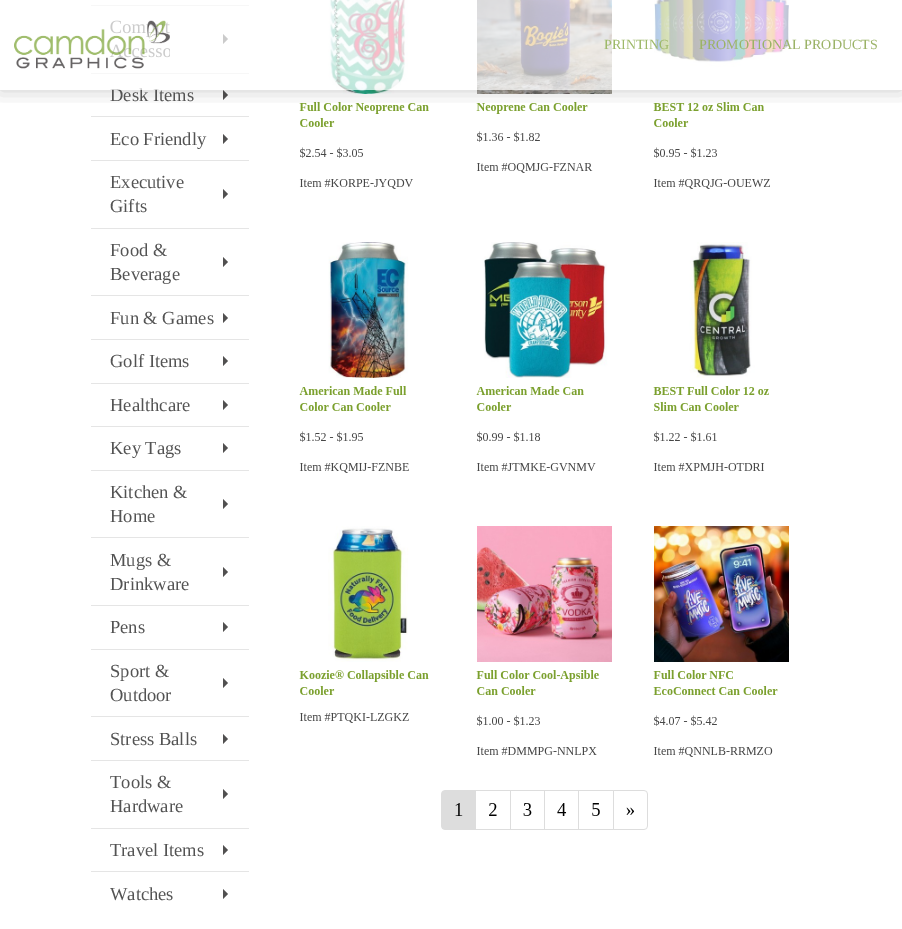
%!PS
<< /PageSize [902 929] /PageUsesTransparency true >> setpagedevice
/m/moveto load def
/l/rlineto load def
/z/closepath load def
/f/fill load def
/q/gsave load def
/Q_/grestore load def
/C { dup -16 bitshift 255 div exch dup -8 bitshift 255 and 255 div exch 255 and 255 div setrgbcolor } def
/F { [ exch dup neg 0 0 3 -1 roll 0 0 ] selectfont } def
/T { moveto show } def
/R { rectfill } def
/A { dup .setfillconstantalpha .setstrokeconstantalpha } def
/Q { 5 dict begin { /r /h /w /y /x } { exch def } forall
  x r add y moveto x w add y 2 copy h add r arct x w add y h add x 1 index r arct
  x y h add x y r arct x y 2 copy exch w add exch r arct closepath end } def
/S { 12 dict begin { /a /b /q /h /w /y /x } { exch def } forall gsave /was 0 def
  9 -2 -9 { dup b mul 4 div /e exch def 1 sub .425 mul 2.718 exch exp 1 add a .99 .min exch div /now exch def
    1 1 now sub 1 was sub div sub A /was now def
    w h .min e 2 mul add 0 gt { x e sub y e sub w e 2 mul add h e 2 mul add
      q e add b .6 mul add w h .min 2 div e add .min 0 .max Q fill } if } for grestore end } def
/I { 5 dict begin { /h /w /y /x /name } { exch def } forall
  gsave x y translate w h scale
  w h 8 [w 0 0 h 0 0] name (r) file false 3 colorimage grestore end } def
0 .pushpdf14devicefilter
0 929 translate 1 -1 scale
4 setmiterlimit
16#FFFFFF C
0 0 902 929 R
16#E5E5E5 C
91 5 158 1 R
16#515050 C
223 44 m 0 -10 l 5 5 l z f
16#E5E5E5 C
91 73 158 1 R
16#515050 C
223 100 m 0 -10 l 5 5 l z f
16#E5E5E5 C
91 116 158 1 R
(2.rgb) 299 0 490 830 I
q
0 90 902 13 rectclip
16#000000 C
0 0 902 90 0 10 .21 S
Q_
/LiberationSerif-Regular 18.5 F
16#535353 C
(Desk Items) 110 101 T
0.7 A
16#FFFFFF C
91 0 698 90 R
1 A
(1.rgb) 14 20 156 49 I
/LiberationSerif-Regular 14 F
16#9EB969 C
(PRINTING) 604 49 T
16#9BB367 C
(PROMOTIONAL PRODUCTS) 699 49 T
/LiberationSerif-Regular 18.5 F
16#535353 C
(Eco Friendly) 110 145 T
16#515050 C
223 144 m 0 -10 l 5 5 l z f
16#E5E5E5 C
91 160 158 1 R
16#535353 C
(Executive) 110 188 T
16#515050 C
223 199 m 0 -10 l 5 5 l z f
16#535353 C
(Gifts) 110 212 T
16#E5E5E5 C
91 228 158 1 R
16#535353 C
(Food &) 110 256 T
16#515050 C
223 267 m 0 -10 l 5 5 l z f
16#535353 C
(Beverage) 110 280 T
16#E5E5E5 C
91 295 158 1 R
16#535353 C
(Fun & Games) 110 324 T
16#515050 C
223 323 m 0 -10 l 5 5 l z f
16#E5E5E5 C
91 339 158 1 R
16#535353 C
(Golf Items) 110 367 T
16#515050 C
223 366 m 0 -10 l 5 5 l z f
16#E5E5E5 C
91 383 158 1 R
16#535353 C
(Healthcare) 110 411 T
16#515050 C
223 410 m 0 -10 l 5 5 l z f
16#E5E5E5 C
91 426 158 1 R
16#535353 C
(Key Tags) 110 454 T
16#515050 C
223 453 m 0 -10 l 5 5 l z f
16#E5E5E5 C
91 470 158 1 R
16#535353 C
(Kitchen &) 110 498 T
16#515050 C
223 509 m 0 -10 l 5 5 l z f
16#535353 C
(Home) 110 522 T
16#E5E5E5 C
91 537 158 1 R
16#535353 C
(Mugs &) 110 566 T
16#515050 C
223 577 m 0 -10 l 5 5 l z f
16#535353 C
(Drinkware) 110 590 T
16#E5E5E5 C
91 605 158 1 R
16#535353 C
(Pens) 110 633 T
16#515050 C
223 632 m 0 -10 l 5 5 l z f
16#E5E5E5 C
91 649 158 1 R
16#535353 C
(Sport &) 110 677 T
16#515050 C
223 688 m 0 -10 l 5 5 l z f
16#535353 C
(Outdoor) 110 701 T
16#E5E5E5 C
91 716 158 1 R
16#535353 C
(Stress Balls) 110 745 T
16#515050 C
223 744 m 0 -10 l 5 5 l z f
16#E5E5E5 C
91 760 158 1 R
16#535353 C
(Tools &) 110 788 T
16#515050 C
223 799 m 0 -10 l 5 5 l z f
16#535353 C
(Hardware) 110 812 T
16#E5E5E5 C
91 828 158 1 R
16#535353 C
(Travel Items) 110 856 T
16#515050 C
223 855 m 0 -10 l 5 5 l z f
16#E5E5E5 C
91 871 158 1 R
16#535353 C
(Watches) 110 900 T
16#515050 C
223 899 m 0 -10 l 5 5 l z f
.poppdf14devicefilter showpage
